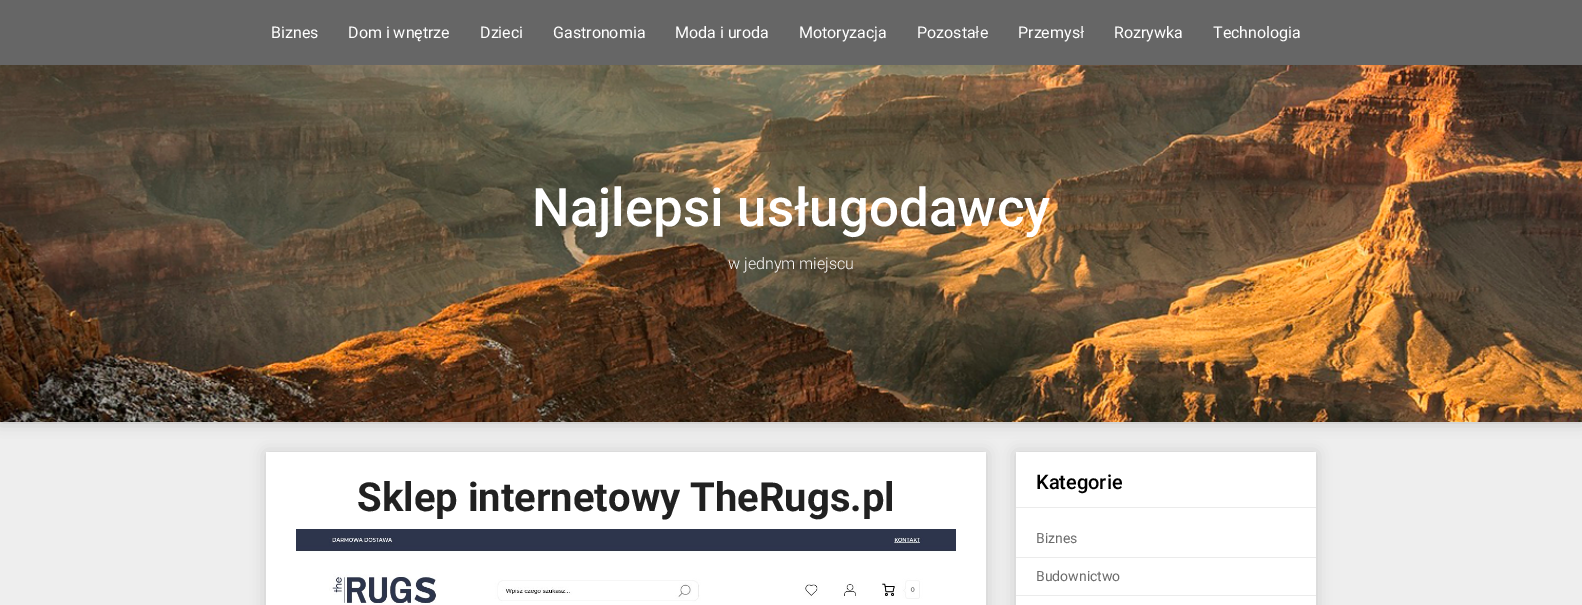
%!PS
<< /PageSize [1582 605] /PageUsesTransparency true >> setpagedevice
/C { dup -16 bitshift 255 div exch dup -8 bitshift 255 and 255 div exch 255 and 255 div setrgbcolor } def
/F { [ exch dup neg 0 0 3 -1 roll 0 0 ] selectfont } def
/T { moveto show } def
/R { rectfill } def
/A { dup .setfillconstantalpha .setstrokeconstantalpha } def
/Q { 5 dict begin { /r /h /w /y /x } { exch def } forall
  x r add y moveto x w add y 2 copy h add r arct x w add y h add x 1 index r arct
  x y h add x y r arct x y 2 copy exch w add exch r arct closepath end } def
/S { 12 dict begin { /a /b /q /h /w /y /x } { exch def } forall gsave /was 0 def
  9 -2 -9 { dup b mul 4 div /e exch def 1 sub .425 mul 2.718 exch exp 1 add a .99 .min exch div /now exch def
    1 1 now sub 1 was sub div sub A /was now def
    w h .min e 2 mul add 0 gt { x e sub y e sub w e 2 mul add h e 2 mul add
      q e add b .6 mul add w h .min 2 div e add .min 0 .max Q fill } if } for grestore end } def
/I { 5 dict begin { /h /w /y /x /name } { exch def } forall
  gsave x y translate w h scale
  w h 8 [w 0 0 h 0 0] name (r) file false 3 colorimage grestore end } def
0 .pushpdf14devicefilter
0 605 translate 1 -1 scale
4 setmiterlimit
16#EEEEEE C
0 0 1582 605 R
16#000000 C
0 0 1582 422 0 7.5 .2 S
(1.rgb) 0 65 1582 357 I
16#666666 C
0 0 1582 65 R
/Roboto-Regular 16 F
16#FFFFFF C
(Biznes) 271 38 T
(Dom i wnętrze) 348 38 T
(Dzieci) 480 38 T
(Gastronomia) 553 38 T
(Moda i uroda) 675 38 T
(Motoryzacja) 799 38 T
(Pozostałe) 917 38 T
(Przemysł) 1018 38 T
(Rozrywka) 1114 38 T
(Technologia) 1213 38 T
/Roboto-Medium 53 F
(Najlepsi usługodawcy) 532 226 T
/Roboto-Light 16 F
(w jednym miejscu) 728 269 T
16#000000 C
266 453 720 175 0 7.5 .15 S
16#FFFFFF C
266 452 720 153 R
/Roboto-Bold 40 F
16#212121 C
(Sklep internetowy TheRugs.pl) 357 511 T
(2.rgb) 296 529 660 74 I
16#000000 C
1016 453 300 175 0 7.5 .15 S
16#FFFFFF C
1016 452 300 153 R
16#EBEBEB C
1016 507 300 1 R
/Roboto-Medium 20 F
16#000000 C
(Kategorie) 1036 489 T
16#EBEBEB C
1016 557 300 1 R
/Roboto-Regular 14 F
16#6B6B6B C
(Biznes) 1036 543 T
16#EBEBEB C
1016 595 300 1 R
16#6B6B6B C
(Budownictwo) 1036 581 T
.poppdf14devicefilter showpage
